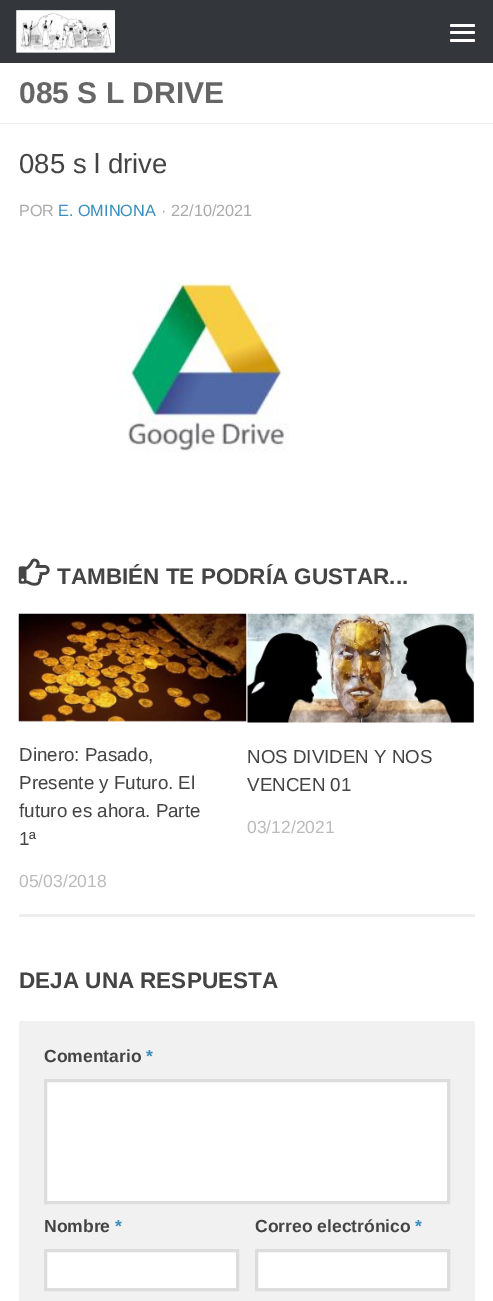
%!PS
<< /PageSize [493 1301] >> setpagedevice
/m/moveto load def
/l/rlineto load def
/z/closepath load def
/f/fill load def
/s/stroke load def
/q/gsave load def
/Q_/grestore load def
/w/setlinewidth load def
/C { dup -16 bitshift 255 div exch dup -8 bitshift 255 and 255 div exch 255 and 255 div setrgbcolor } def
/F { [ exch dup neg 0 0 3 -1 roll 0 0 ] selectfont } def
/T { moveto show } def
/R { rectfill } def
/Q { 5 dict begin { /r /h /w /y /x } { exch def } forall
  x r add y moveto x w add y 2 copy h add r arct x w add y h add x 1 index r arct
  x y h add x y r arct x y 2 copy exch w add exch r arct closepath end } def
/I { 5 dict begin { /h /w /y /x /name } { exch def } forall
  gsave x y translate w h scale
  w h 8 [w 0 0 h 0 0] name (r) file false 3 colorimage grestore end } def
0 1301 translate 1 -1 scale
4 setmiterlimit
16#FFFFFF C
0 0 493 1301 R
16#33363B C
0 0 493 63 R
(1.rgb) 16 10 99 43 I
16#FFFFFF C
450 24 25 3 1.5 Q f
450 31 25 3 1.5 Q f
450 39 25 3 1.5 Q f
16#EEEEEE C
0 123 493 1 R
/LiberationSans-Bold 30 F
16#666666 C
(085 S L DRIVE) 19 103 T
/LiberationSans-Regular 27.5 F
16#444444 C
(085 s l drive) 19 173 T
/LiberationSans-Regular 16.25 F
16#AAAAAA C
(POR) 19 216 T
16#3B8DBD C
(E. OMINONA) 58 216 T
16#AAAAAA C
(· 22/10/2021) 161 216 T
(2.rgb) 119 281 170 172 I
(3.rgb) 18 558 32 28 I
/LiberationSans-Bold 22.5 F
16#444444 C
(TAMBIÉN TE PODRÍA GUSTAR...) 57 584 T
16#EEEEEE C
19 914 456 3 R
(4.rgb) 18 613 229 109 I
/LiberationSans-Regular 18.75 F
16#444444 C
(Dinero: Pasado,) 19 761 T
(Presente y Futuro. El) 19 789 T
(futuro es ahora. Parte) 19 817 T
(1ª) 19 845 T
/LiberationSans-Regular 17.5 F
16#BBBBBB C
(05/03/2018) 19 887 T
(5.rgb) 247 613 227 110 I
/LiberationSans-Regular 18.75 F
16#444444 C
(NOS DIVIDEN Y NOS) 247 763 T
(VENCEN 01) 247 791 T
/LiberationSans-Regular 17.5 F
16#BBBBBB C
(03/12/2021) 247 833 T
/LiberationSans-Bold 22.5 F
16#444444 C
(DEJA UNA RESPUESTA) 19 988 T
16#F1F1F1 C
19 1021 456 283 2.5 Q f
/LiberationSans-Bold 17.5 F
16#444444 C
(Comentario) 44 1062 T
16#3B8DBD C
(*) 146 1062 T
16#FFFFFF C
45.5 1080.5 m 403 0 l 0 122 l -403 0 l z q f Q_
16#DDDDDD C
3 w
s
16#444444 C
(Nombre) 44 1232 T
16#3B8DBD C
(*) 115 1232 T
16#FFFFFF C
45.5 1250.5 m 192 0 l 0 39 l -192 0 l z q f Q_
16#DDDDDD C
s
16#444444 C
(Correo electrónico) 255 1232 T
16#3B8DBD C
(*) 415 1232 T
16#FFFFFF C
256.5 1250.5 m 192 0 l 0 39 l -192 0 l z q f Q_
16#DDDDDD C
s
showpage
